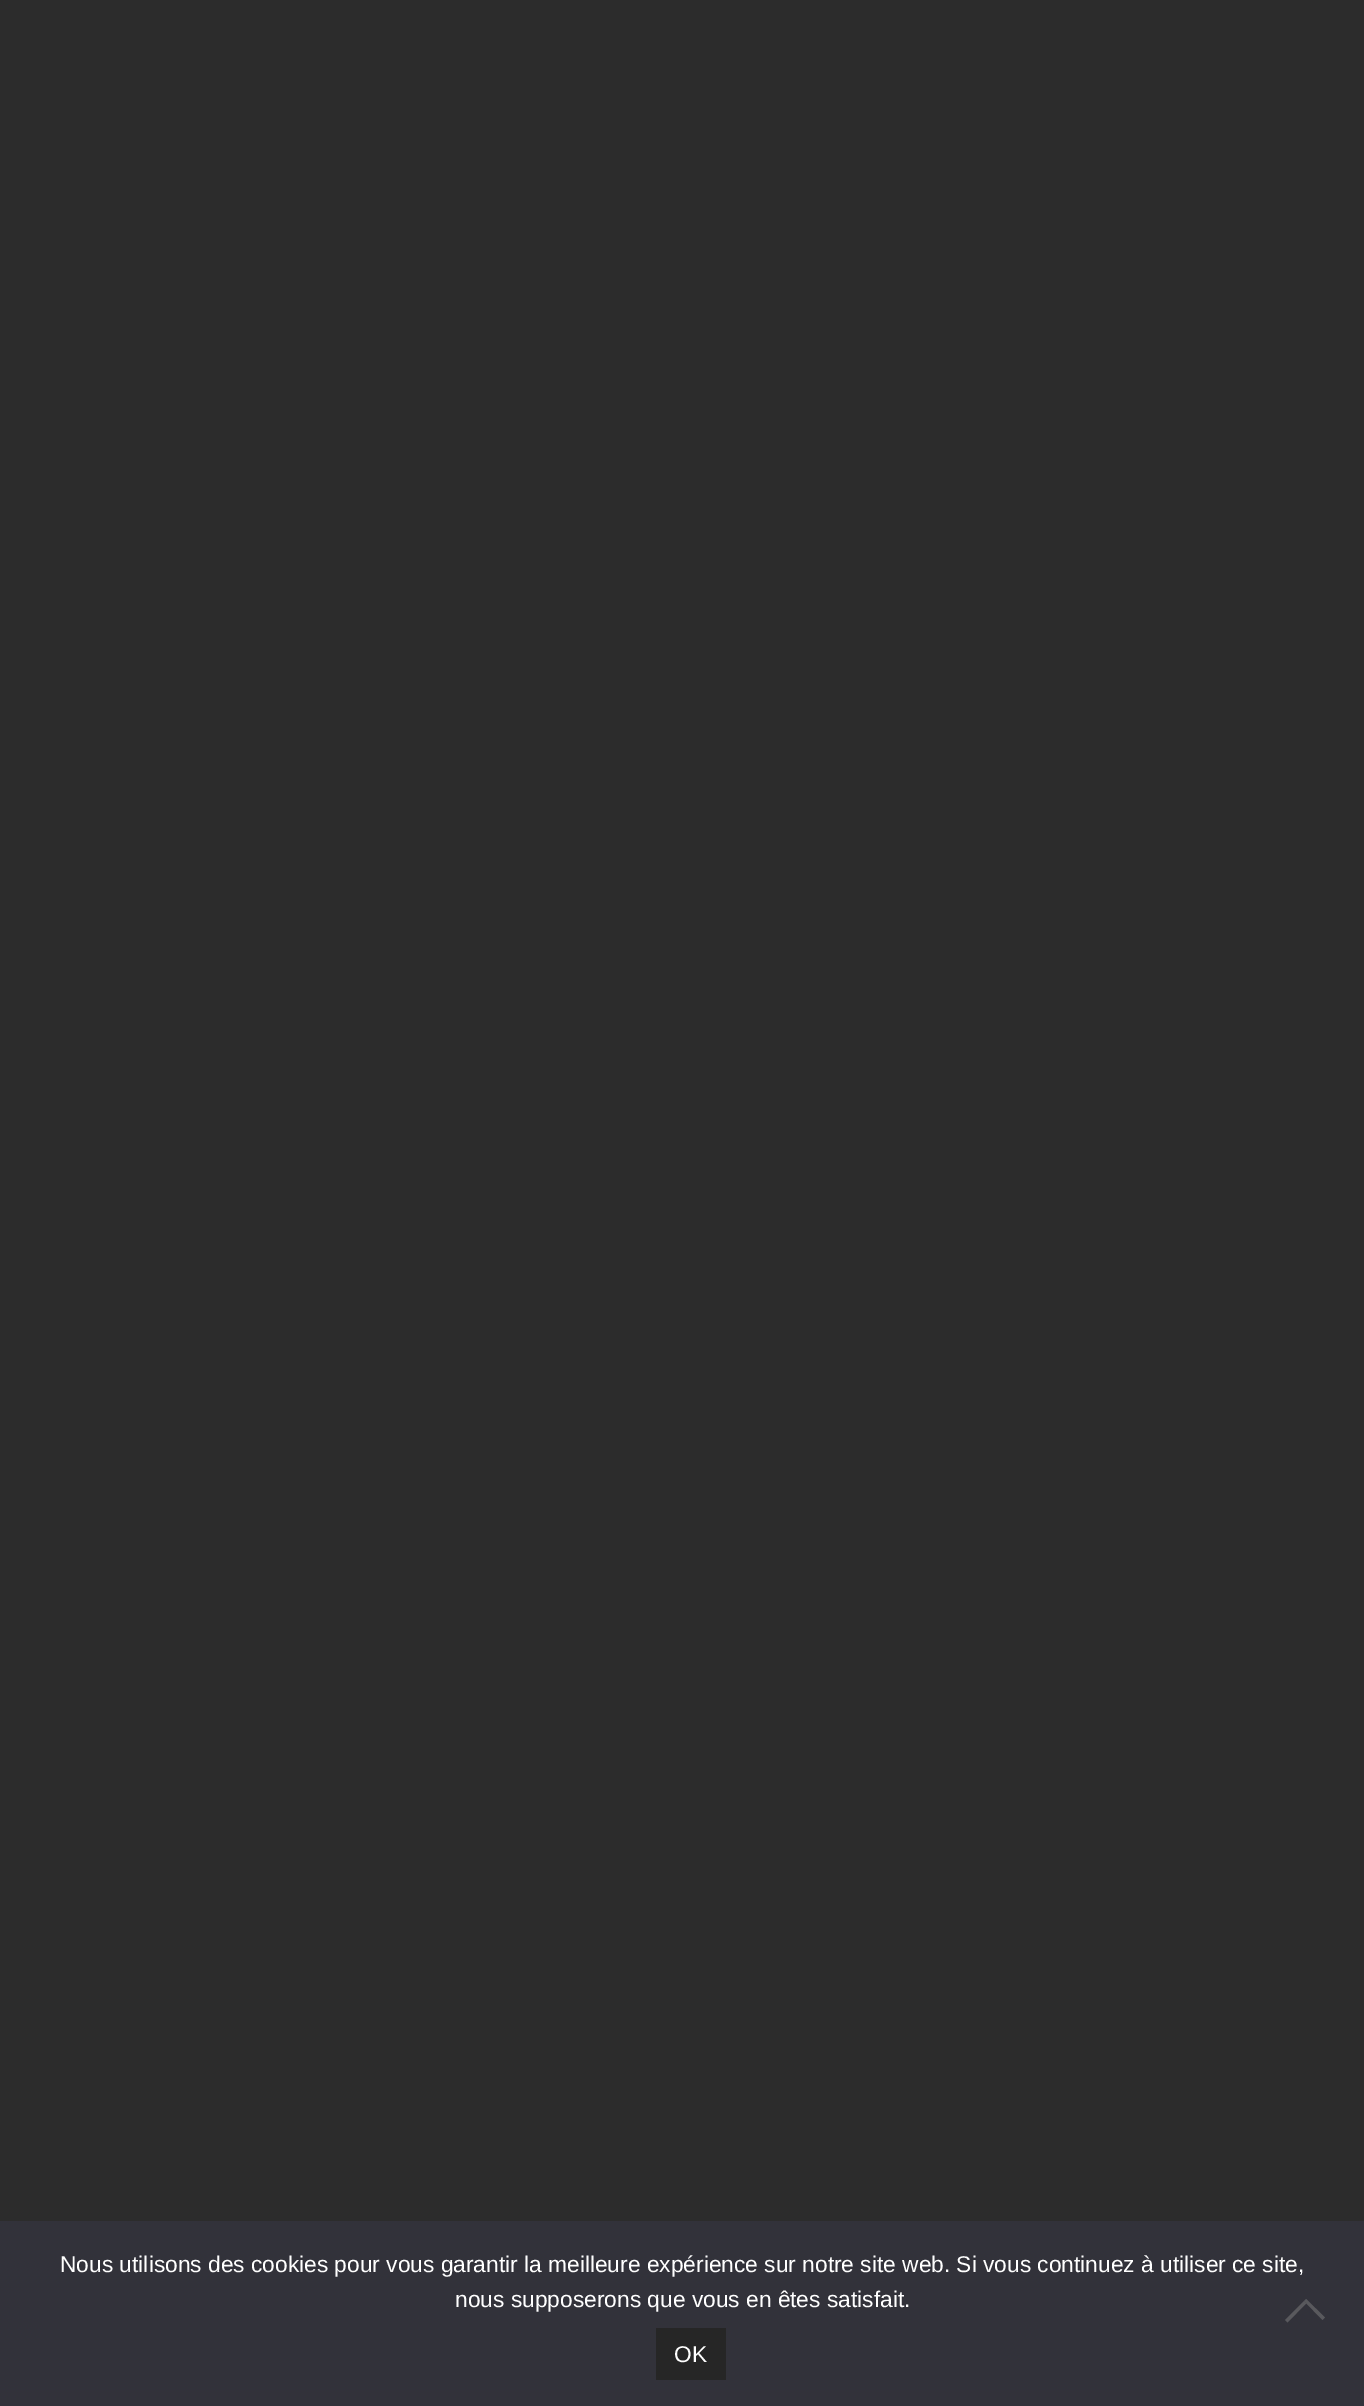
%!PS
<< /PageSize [1364 2406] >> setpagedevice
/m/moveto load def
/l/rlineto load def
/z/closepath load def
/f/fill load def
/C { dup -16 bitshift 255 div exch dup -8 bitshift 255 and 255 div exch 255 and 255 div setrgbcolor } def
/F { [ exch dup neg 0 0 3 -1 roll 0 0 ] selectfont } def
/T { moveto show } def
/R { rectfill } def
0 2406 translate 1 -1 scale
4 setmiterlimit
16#2C2C2C C
0 0 1364 2406 R
16#32323A C
0 2221 1364 185 R
/LiberationSans-Regular 22.75 F
16#FFFFFF C
(Nous utilisons des cookies pour vous garantir la meilleure expérience sur notre site web. Si vous continuez à utiliser ce site,) 60 2272 T
(nous supposerons que vous en êtes satisfait.) 455 2307 T
16#59595D C
1304 2301 m 2 2.5 l -18.5 19 l -2.5 -2.5 l z f
1304 2301 m 2 -2 l 19 18.5 l -2.5 2.5 l z f
16#262626 C
656 2328 70 52 R
16#FFFFFF C
(OK) 674 2362 T
showpage
